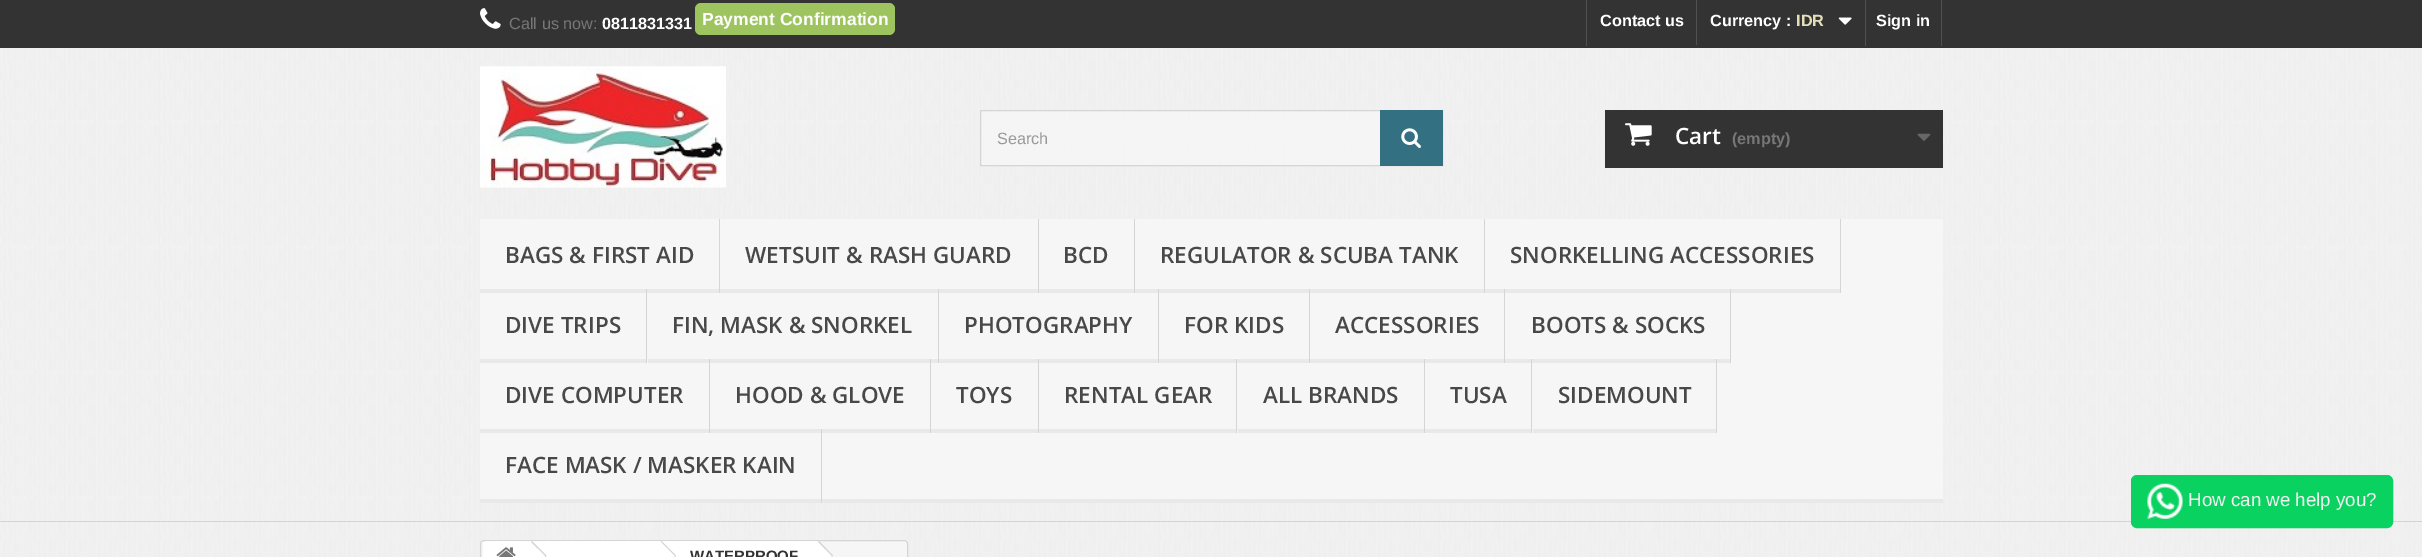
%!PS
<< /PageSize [2422 557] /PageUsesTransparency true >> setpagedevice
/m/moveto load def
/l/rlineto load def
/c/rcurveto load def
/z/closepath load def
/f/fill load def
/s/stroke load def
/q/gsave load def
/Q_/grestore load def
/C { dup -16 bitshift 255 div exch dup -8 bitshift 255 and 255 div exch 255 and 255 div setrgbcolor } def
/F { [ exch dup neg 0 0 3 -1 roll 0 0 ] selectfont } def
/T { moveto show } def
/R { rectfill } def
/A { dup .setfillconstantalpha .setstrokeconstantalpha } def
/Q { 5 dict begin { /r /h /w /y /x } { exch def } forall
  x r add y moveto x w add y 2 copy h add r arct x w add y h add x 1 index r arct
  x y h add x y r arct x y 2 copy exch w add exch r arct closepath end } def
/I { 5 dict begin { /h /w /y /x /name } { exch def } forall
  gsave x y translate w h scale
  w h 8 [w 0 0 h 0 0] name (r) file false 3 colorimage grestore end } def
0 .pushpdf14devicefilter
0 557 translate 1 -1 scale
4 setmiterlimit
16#FFFFFF C
0 0 2422 557 R
(1.rgb) 0 48 2422 474 I
(10.rgb) 0 521 2422 36 I
(2.rgb) 0 521 2422 1 I
16#333333 C
0 0 2422 48 R
(3.rgb) 480 8 21 21 I
/LiberationSans-Regular 16.25 F
16#777777 C
(Call us now:) 509 29 T
/LiberationSans-Bold 16.25 F
16#FFFFFF C
(0811831331) 602 29 T
16#9DC45F C
695 3 200 32 6 Q f
/LiberationSans-Bold 17.5 F
16#FFFFFF C
(Payment Confirmation) 702 25 T
16#515151 C
1586 0 1 46 R
/LiberationSans-Bold 16.25 F
16#FFFFFF C
(Contact us) 1600 26 T
16#515151 C
1696 0 1 45 R
16#FFFFFF C
(Currency :) 1710 26 T
16#E4DFB9 C
(IDR) 1796 26 T
(4.rgb) 1838 17 14 8 I
16#515151 C
1941 0 1 46 R
1865 0 1 46 R
16#FFFFFF C
(Sign in) 1876 26 T
(5.rgb) 480 66 246 122 I
0.63 A
16#F8F8F8 C
981 111 399 54 R
1 A
16#D6D4D4 C
980.5 110.5 462 55 rectstroke
/LiberationSans-Regular 16.25 F
16#999999 C
(Search) 997 144 T
16#327082 C
1380 110 63 56 R
(6.rgb) 1401 128 20 20 I
16#333333 C
1605 110 338 58 R
(7.rgb) 1625 123 27 23 I
/OpenSans-SemiBold 22.5 F
16#FFFFFF C
(Cart) 1675 144 T
/LiberationSans-Bold 16.25 F
16#777777 C
(\(empty\)) 1732 144 T
(8.rgb) 1917 133 14 8 I
16#F6F6F6 C
480 219 1463 280 R
16#E9E9E9 C
480 499 1463 4 R
16#D6D4D4 C
719 219 1 74 R
16#E9E9E9 C
480 289 239 4 R
/OpenSans-SemiBold 22.5 F
16#484848 C
(BAGS & FIRST AID) 505 263 T
16#D6D4D4 C
1038 219 1 74 R
16#E9E9E9 C
720 289 318 4 R
16#484848 C
(WETSUIT & RASH GUARD) 745 263 T
16#D6D4D4 C
1134 219 1 74 R
16#E9E9E9 C
1039 289 95 4 R
16#484848 C
(BCD) 1063 263 T
16#D6D4D4 C
1484 219 1 74 R
16#E9E9E9 C
1135 289 349 4 R
16#484848 C
(REGULATOR & SCUBA TANK) 1160 263 T
16#D6D4D4 C
1840 219 1 74 R
16#E9E9E9 C
1485 289 355 4 R
16#484848 C
(SNORKELLING ACCESSORIES) 1510 263 T
16#D6D4D4 C
646 289 1 74 R
16#E9E9E9 C
480 359 166 4 R
16#484848 C
(DIVE TRIPS) 505 333 T
16#D6D4D4 C
938 289 1 74 R
16#E9E9E9 C
648 359 290 4 R
16#484848 C
(FIN, MASK & SNORKEL) 672 333 T
16#D6D4D4 C
1158 289 1 74 R
16#E9E9E9 C
939 359 219 4 R
16#484848 C
(PHOTOGRAPHY) 964 333 T
16#D6D4D4 C
1309 289 1 74 R
16#E9E9E9 C
1159 359 150 4 R
16#484848 C
(FOR KIDS) 1184 333 T
16#D6D4D4 C
1504 289 1 74 R
16#E9E9E9 C
1310 359 194 4 R
16#484848 C
(ACCESSORIES) 1335 333 T
16#D6D4D4 C
1730 289 1 74 R
16#E9E9E9 C
1505 359 225 4 R
16#484848 C
(BOOTS & SOCKS) 1531 333 T
16#D6D4D4 C
709 359 1 74 R
16#E9E9E9 C
480 429 229 4 R
16#484848 C
(DIVE COMPUTER) 505 403 T
16#D6D4D4 C
930 359 1 74 R
16#E9E9E9 C
710 429 220 4 R
16#484848 C
(HOOD & GLOVE) 735 403 T
16#D6D4D4 C
1038 359 1 74 R
16#E9E9E9 C
931 429 107 4 R
16#484848 C
(TOYS) 956 403 T
16#D6D4D4 C
1236 359 1 74 R
16#E9E9E9 C
1039 429 197 4 R
16#484848 C
(RENTAL GEAR) 1064 403 T
16#D6D4D4 C
1424 359 1 74 R
16#E9E9E9 C
1238 429 186 4 R
16#484848 C
(ALL BRANDS) 1263 403 T
16#D6D4D4 C
1531 359 1 74 R
16#E9E9E9 C
1425 429 106 4 R
16#484848 C
(TUSA) 1450 403 T
16#D6D4D4 C
1716 359 1 74 R
16#E9E9E9 C
1533 429 183 4 R
16#484848 C
(SIDEMOUNT) 1558 403 T
16#D6D4D4 C
821 429 1 74 R
16#484848 C
(FACE MASK / MASKER KAIN) 505 473 T
16#09D261 C
2131.5 475.5 261 52 5.5 Q q f Q_
s
(9.rgb) 2147 483 36 36 I
/LiberationSans-Regular 18.75 F
16#F1F1F1 C
(How can we help you?) 2188 506 T
16#F6F6F6 C
480.5 540.5 427 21 3.5 Q q f Q_
16#D6D4D4 C
s
16#FFFFFF C
487 541 m 43 0 l 0 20 l -43 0 l -2 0 -4 -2 -4 -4 c 0 -12 l 0 -2 2 -4 4 -4 c z f
(11.rgb) 496 547 20 10 I
530 541 133 16 R
16#D6D4D4 C
532 541 m 14.5 14.5 l -1 .5 l -14.5 -14 l z 545.5 556 m 1 1 l -14.5 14.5 l -1 -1 l z f
16#FFFFFF C
675 542 m 12.5 12.5 l 1 1 1 2.5 0 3.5 c -12.5 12.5 l -1 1 -2.5 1 -3.5 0 c -12.5 -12.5 l -1 -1 -1 -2.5 0 -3.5 c 12.5 -12.5 l 1 -1 2.5 -1 3.5 0 c z f
663 541 153 16 R
16#D6D4D4 C
661.5 541 m 14.5 14.5 l -1 .5 l -14 -14 l z 675 556 m 1 1 l -14.5 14.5 l -.5 -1 l z f
/LiberationSans-Bold 15 F
16#333333 C
(WATERPROOF) 690 561 T
16#FFFFFF C
819.5 542 m 12.5 12.5 l 1 1 1 2.5 0 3.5 c -12.5 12.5 l -1 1 -2.5 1 -3.5 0 c -12 -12.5 l -1 -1 -1 -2.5 0 -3.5 c 12 -12.5 l 1 -1 2.5 -1 3.5 0 c z f
16#D6D4D4 C
819 541 m 14 14.5 l -1 .5 l -14 -14 l z 832 556 m 1 1 l -14 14.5 l -1 -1 l z f
.poppdf14devicefilter showpage
